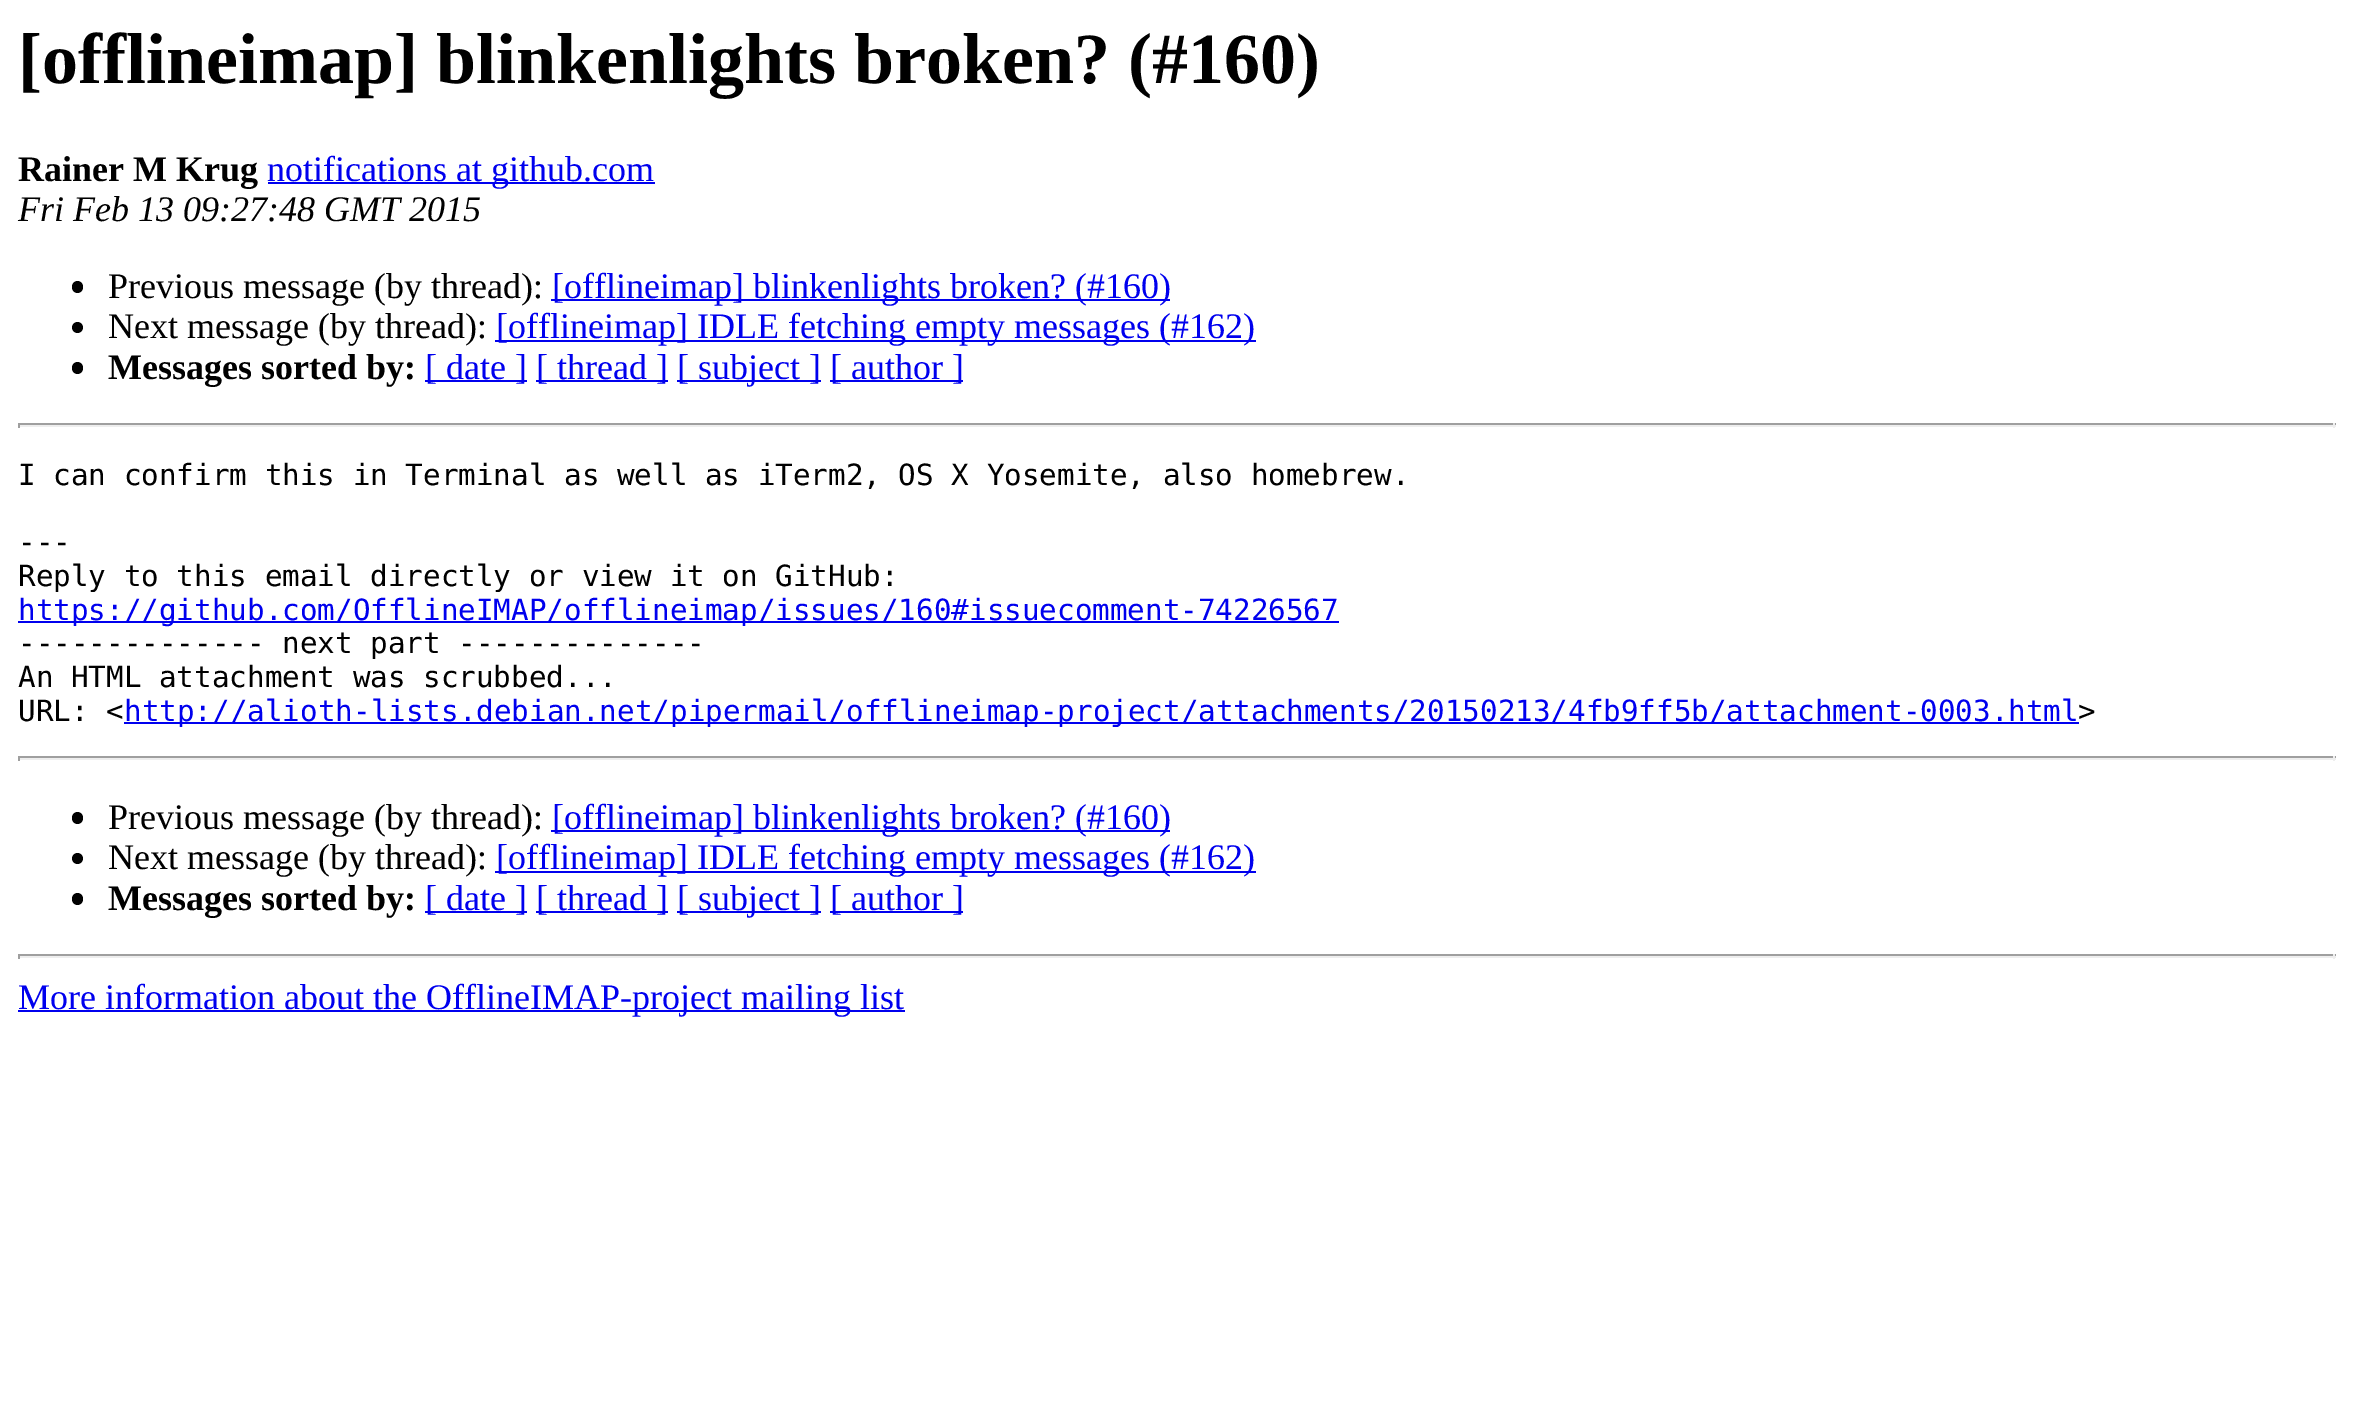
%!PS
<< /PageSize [2353 1425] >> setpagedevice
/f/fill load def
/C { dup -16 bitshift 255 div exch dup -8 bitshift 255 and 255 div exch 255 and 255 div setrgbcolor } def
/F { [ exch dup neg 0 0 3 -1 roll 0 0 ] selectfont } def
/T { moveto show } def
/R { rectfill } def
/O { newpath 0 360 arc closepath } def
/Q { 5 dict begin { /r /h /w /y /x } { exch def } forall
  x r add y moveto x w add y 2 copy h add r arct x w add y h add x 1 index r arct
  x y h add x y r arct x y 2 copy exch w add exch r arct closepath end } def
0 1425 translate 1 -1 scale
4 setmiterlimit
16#FFFFFF C
0 0 2353 1425 R
/LiberationSerif-Bold 72 F
16#000000 C
([offlineimap] blinkenlights broken? \(#160\)) 18 83 T
/LiberationSerif-Bold 36 F
(Rainer M Krug) 18 181 T
16#0000EE C
268 182 387 2 R
/LiberationSerif-Regular 36 F
(notifications at github.com) 267 181 T
/LiberationSerif-Italic 36 F
16#000000 C
(Fri Feb 13 09:27:48 GMT 2015) 18 221 T
72 281 11 12 5.5 Q f
/LiberationSerif-Regular 36 F
(Previous message \(by thread\):) 108 298 T
16#0000EE C
551 299 619 2 R
([offlineimap] blinkenlights broken? \(#160\)) 552 298 T
16#000000 C
77.5 327.5 5.5 O f
(Next message \(by thread\):) 108 338 T
16#0000EE C
495 340 761 2 R
([offlineimap] IDLE fetching empty messages \(#162\)) 496 338 T
16#000000 C
72 362 11 12 5.5 Q f
/LiberationSerif-Bold 36 F
(Messages sorted by:) 108 379 T
16#0000EE C
425 380 102 2 R
/LiberationSerif-Regular 36 F
([ date ]) 425 379 T
536 380 132 2 R
([ thread ]) 536 379 T
677 380 144 2 R
([ subject ]) 677 379 T
830 380 133 2 R
([ author ]) 830 379 T
16#9F9F9F C
18 423 2318 2 R
16#EEEEEE C
2333 423 2 5 R
18 425 2318 2 R
16#9F9F9F C
18 423 2 5 R
/DejaVuSansMono-Regular 29.25 F
16#000000 C
(I can confirm this in Terminal as well as iTerm2, OS X Yosemite, also homebrew.) 18 485 T
(---) 18 552 T
(Reply to this email directly or view it on GitHub:) 18 586 T
16#0000EE C
18 621 1321 2 R
(https://github.com/OfflineIMAP/offlineimap/issues/160#issuecomment-74226567) 18 620 T
16#000000 C
(-------------- next part --------------) 18 653 T
(An HTML attachment was scrubbed...) 18 687 T
(URL: <) 18 721 T
16#0000EE C
124 722 1955 2 R
(http://alioth-lists.debian.net/pipermail/offlineimap-project/attachments/20150213/4fb9ff5b/attachment-0003.html) 124 721 T
16#000000 C
(>) 2078 721 T
16#9F9F9F C
18 756 2318 2 R
16#EEEEEE C
2333 756 2 5 R
18 758 2318 2 R
16#9F9F9F C
18 756 2 5 R
16#000000 C
72 812 11 12 5.5 Q f
/LiberationSerif-Regular 36 F
(Previous message \(by thread\):) 108 829 T
16#0000EE C
551 830 619 2 R
([offlineimap] blinkenlights broken? \(#160\)) 552 829 T
16#000000 C
77.5 858.5 5.5 O f
(Next message \(by thread\):) 108 869 T
16#0000EE C
495 871 761 2 R
([offlineimap] IDLE fetching empty messages \(#162\)) 496 869 T
16#000000 C
72 893 11 12 5.5 Q f
/LiberationSerif-Bold 36 F
(Messages sorted by:) 108 910 T
16#0000EE C
425 911 102 2 R
/LiberationSerif-Regular 36 F
([ date ]) 425 910 T
536 911 132 2 R
([ thread ]) 536 910 T
677 911 144 2 R
([ subject ]) 677 910 T
830 911 133 2 R
([ author ]) 830 910 T
16#9F9F9F C
18 954 2318 2 R
16#EEEEEE C
2333 954 2 5 R
18 956 2318 2 R
16#9F9F9F C
18 954 2 5 R
16#0000EE C
18 1010 887 2 R
(More information about the OfflineIMAP-project mailing list) 18 1009 T
showpage
